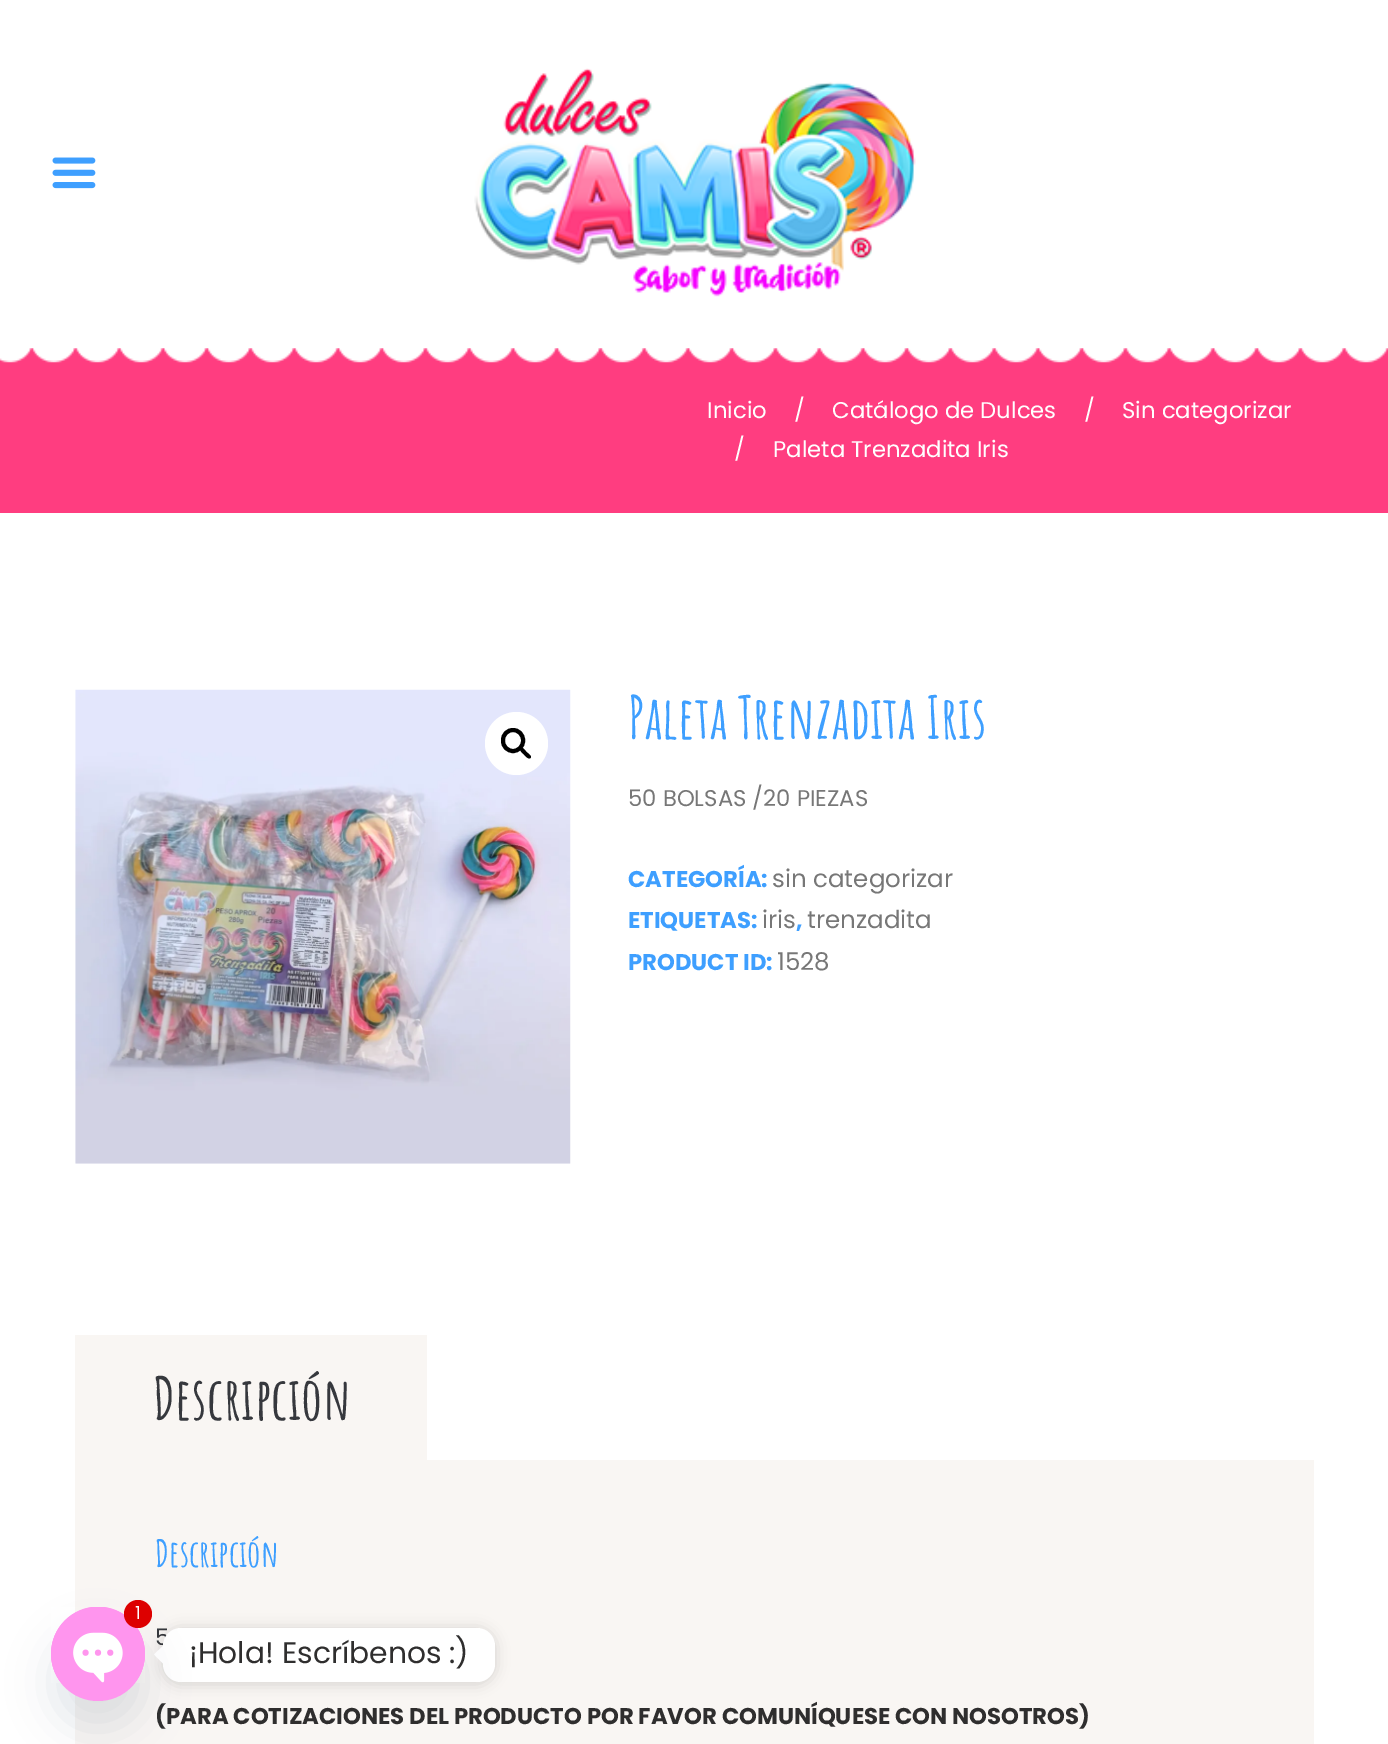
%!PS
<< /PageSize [1388 1744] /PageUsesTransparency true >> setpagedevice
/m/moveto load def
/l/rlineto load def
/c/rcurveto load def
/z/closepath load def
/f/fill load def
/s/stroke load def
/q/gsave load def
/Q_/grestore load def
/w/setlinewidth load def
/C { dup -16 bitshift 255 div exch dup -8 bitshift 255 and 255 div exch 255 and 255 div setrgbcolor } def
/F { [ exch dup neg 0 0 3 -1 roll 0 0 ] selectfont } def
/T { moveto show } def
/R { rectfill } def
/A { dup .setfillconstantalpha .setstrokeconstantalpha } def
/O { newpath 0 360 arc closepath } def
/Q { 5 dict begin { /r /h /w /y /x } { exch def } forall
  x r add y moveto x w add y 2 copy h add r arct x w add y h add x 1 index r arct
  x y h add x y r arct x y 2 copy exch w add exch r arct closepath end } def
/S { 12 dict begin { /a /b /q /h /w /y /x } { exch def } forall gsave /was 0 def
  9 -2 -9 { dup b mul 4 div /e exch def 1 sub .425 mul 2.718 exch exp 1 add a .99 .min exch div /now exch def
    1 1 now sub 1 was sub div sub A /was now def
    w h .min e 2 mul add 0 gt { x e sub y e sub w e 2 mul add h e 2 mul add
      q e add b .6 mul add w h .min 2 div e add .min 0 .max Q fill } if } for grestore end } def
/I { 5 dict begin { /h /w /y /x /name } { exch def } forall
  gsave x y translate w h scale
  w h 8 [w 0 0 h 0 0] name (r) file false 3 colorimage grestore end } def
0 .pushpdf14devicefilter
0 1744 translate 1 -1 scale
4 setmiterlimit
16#FFFFFF C
0 0 1388 1744 R
(1.rgb) 52 157 44 32 I
(2.rgb) 474 68 442 229 I
16#FF3D80 C
0 348 1388 165 R
(3.rgb) 0 348 1388 15 I
/Poppins-Regular 22.75 F
16#FFFFFF C
(Inicio) 707 418 T
(/) 794 418 T
(Catálogo de Dulces) 832 418 T
(/) 1084 418 T
(Sin categorizar) 1122 418 T
(/) 734 457 T
(Paleta Trenzadita Iris) 773 457 T
(4.rgb) 75 689 496 475 I
516.5 743.5 31.5 O f
16#000000 C
4 w
503 730 20 21 10 Q s
520.5 748 m 2 -2 5 3 6 4 c 1 1 6 4 4 6 c -2 2 -5.5 -2.5 -6.5 -3.5 c -1 -1 -5.5 -4.5 -3.5 -6.5 c z f
/AmaticSC-Bold 58.5 F
16#3E9FFF C
(Paleta Trenzadita Iris) 628 739 T
/Poppins-Regular 22.75 F
16#777777 C
(50 BOLSAS /20 PIEZAS) 628 806 T
/Poppins-Bold 22.75 F
16#3E9FFF C
(CATEGORÍA:) 628 887 T
/Poppins-Regular 24.5 F
16#777777 C
(sin categorizar) 772 887 T
/Poppins-Bold 22.75 F
16#3E9FFF C
(ETIQUETAS:) 628 928 T
/Poppins-Regular 24.5 F
16#777777 C
(iris) 762 928 T
/Poppins-Bold 22.75 F
16#3E9FFF C
(,) 796 928 T
/Poppins-Regular 24.5 F
16#777777 C
(trenzadita) 807 928 T
/Poppins-Bold 22.75 F
16#3E9FFF C
(PRODUCT ID:) 628 970 T
/Poppins-Regular 24.5 F
16#777777 C
(1528) 777 970 T
16#F9F6F3 C
75 1335 352 125 R
/AmaticSC-Bold 58.5 F
16#36383D C
153 1420 m .25 0 (Descripción) ashow
16#F9F6F3 C
75 1460 1239 284 R
/AmaticSC-Bold 37 F
16#3E9FFF C
(Descripción) 155 1567 T
/Poppins-Regular 22.75 F
16#36383D C
(5) 155 1645 T
/Poppins-Bold 22.75 F
16#2F2E2E C
(\(PARA COTIZACIONES DEL PRODUCTO POR FAVOR COMUNÍQUESE CON NOSOTROS\)) 155 1724 T
q
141 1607 m 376 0 l 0 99 l -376 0 l z 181 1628 m 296 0 l 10 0 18 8 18 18 c 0 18 l 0 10 -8 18 -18 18 c -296 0 l -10 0 -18 -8 -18 -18 c 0 -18 l 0 -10 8 -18 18 -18 c z eoclip newpath
16#000000 C
163 1629 332 55 18 7 .15 S
Q_
16#FFFFFF C
163 1628 332 54 18 Q f
163 1646 m 0 17.5 l -9 -9 l z f
16#49687E C
51 1635 94 94 47 21 .16 S
16#FF95EE C
98 1654 47 O f
(5.rgb) 51 1607 94 76 I
16#DD0000 C
138 1614 14 O f
/Poppins-Regular 18 F
16#FFFFFF C
(1) 135 1619 T
/Poppins-Regular 29.75 F
16#2F2E2E C
(¡Hola! Escríbenos :\)) 189 1663 T
.poppdf14devicefilter showpage
